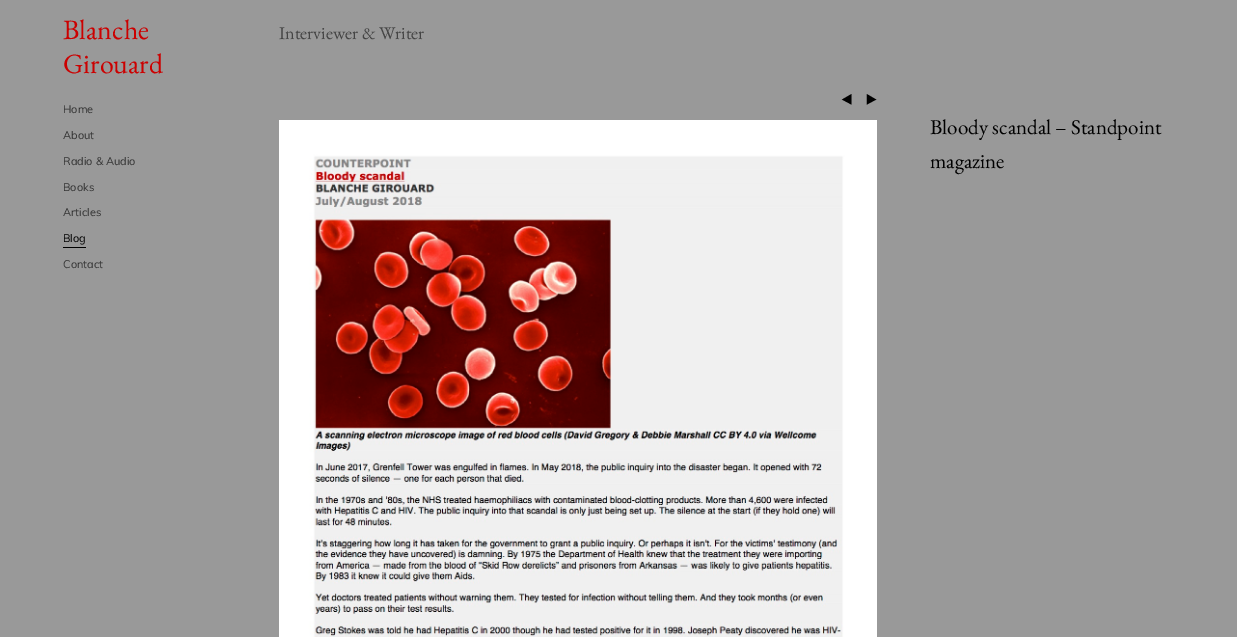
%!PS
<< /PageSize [1237 637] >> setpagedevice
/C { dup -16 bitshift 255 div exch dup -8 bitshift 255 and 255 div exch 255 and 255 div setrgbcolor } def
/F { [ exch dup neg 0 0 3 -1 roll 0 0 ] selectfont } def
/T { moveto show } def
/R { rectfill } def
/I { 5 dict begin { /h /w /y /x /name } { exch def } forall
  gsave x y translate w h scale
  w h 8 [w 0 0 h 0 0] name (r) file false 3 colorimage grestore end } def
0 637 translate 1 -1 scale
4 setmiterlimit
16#999999 C
0 0 1237 637 R
/EBGaramond-Regular 28 F
16#CC0000 C
(Blanche) 63 39 T
(Girouard) 63 73 T
/EBGaramond-Regular 18 F
16#444444 C
(Interviewer & Writer) 279 39 T
/Muli-Regular 11 F
16#333333 C
(Home) 63 113 T
(About) 63 139 T
(Radio & Audio) 63 165 T
(Books) 63 191 T
(Articles) 63 216 T
16#000000 C
(Blog) 63 242 T
63 247 23 1 R
16#333333 C
(Contact) 63 268 T
/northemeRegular-Regular 24 F
16#000000 C
(\() 841 107 T
(\)) 866 107 T
(1.rgb) 279 120 598 517 I
/EBGaramond-Regular 21 F
(Bloody scandal – Standpoint) 930 134 T
(magazine) 930 168 T
showpage
